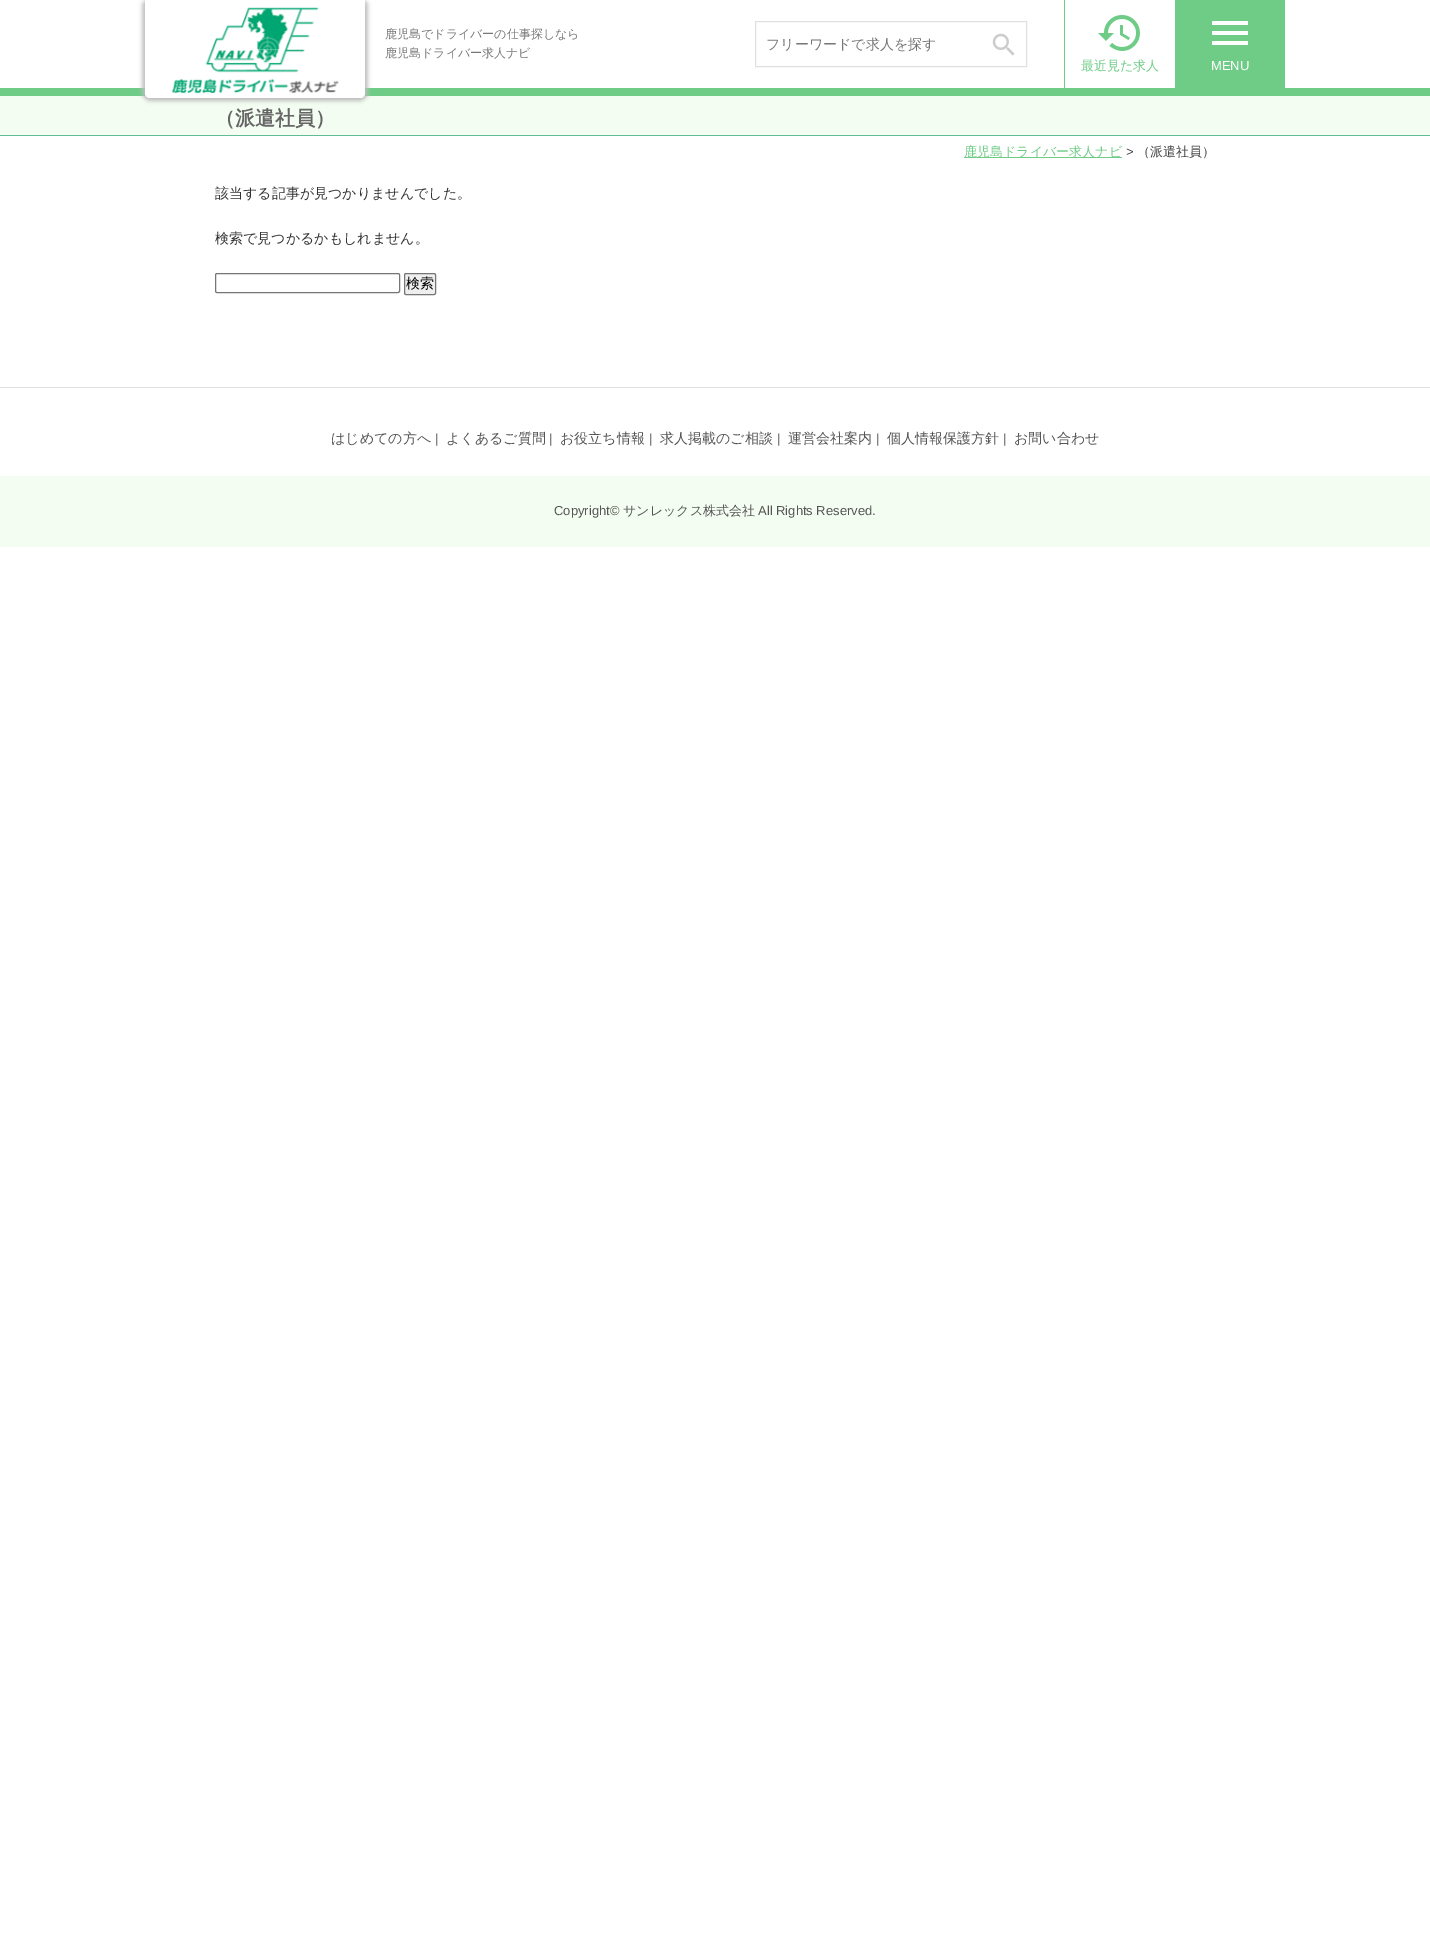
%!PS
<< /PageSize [1430 1949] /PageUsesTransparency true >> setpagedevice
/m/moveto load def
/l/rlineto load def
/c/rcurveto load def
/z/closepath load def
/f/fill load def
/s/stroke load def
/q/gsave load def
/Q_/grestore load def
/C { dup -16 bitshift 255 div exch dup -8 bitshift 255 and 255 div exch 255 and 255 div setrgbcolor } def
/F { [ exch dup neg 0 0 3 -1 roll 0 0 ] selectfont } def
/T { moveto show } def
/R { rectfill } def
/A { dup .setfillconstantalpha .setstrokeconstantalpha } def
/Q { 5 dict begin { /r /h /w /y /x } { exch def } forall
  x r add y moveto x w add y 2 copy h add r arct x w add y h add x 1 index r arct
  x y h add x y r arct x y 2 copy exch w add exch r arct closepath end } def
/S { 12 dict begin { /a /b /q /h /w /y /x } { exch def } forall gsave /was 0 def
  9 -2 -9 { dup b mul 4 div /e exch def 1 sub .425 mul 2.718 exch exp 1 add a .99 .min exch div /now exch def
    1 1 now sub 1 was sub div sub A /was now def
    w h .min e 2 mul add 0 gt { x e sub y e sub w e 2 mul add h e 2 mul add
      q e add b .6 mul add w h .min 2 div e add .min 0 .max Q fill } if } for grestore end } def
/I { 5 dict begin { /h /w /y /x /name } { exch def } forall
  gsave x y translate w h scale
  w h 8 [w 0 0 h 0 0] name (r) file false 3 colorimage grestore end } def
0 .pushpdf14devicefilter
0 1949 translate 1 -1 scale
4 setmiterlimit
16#FFFFFF C
0 0 1430 1949 R
16#6ECC87 C
0 88 1430 8 R
16#F4FDF1 C
0 96 1430 39 R
16#BBBBBB C
142 0 220 98 5 2 .8 S
148 0 220 98 5 2 .8 S
145 3 220 98 5 2 .8 S
16#FFFFFF C
145 0 m 220 0 l 0 93 l 0 3 -2 5 -5 5 c -210 0 l -3 0 -5 -2 -5 -5 c z f
(1.rgb) 172 7 167 87 I
/WenQuanYiZenHei-Medium 12 F
16#777777 C
(鹿児島でドライバーの仕事探しなら) 385 38 T
(鹿児島ドライバー求人ナビ) 385 57 T
16#E0E0E0 C
755.5 21.5 271 45 rectstroke
/WenQuanYiZenHei-Medium 14 F
16#777777 C
(フリーワードで求人を探す) 766 49 T
(2.rgb) 992 33 23 23 I
16#6ECC87 C
1064 0 1 88 R
(3.rgb) 1098 15 42 36 I
/WenQuanYiZenHei-Medium 13 F
(最近見た求人) 1081 70 T
1175 0 110 88 R
16#FFFFFF C
1212 21 m 36 0 l 0 4 l -36 0 l z 1212 35 m 0 -4 l 36 0 l 0 4 l z 1212 45 m 0 -4 l 36 0 l 0 4 l z f
/LiberationSans-Regular 13 F
(MENU) 1211 70 T
16#62BB92 C
0 135 1430 1 R
/WenQuanYiZenHei-Bold 20 F
16#666666 C
(（派遣社員）) 215 125 T
16#6ECC87 C
964 157 158 1 R
/WenQuanYiZenHei-Medium 13 F
(鹿児島ドライバー求人ナビ) 964 156 T
/LiberationSans-Regular 13 F
16#444444 C
(>) 1126 156 T
/WenQuanYiZenHei-Medium 13 F
(（派遣社員）) 1137 156 T
/WenQuanYiZenHei-Medium 14 F
16#333333 C
(該当する記事が見つかりませんでした。) 215 198 T
(検索で見つかるかもしれません。) 215 243 T
16#767676 C
215.5 273.5 184 19 1.5 Q s
16#EFEFEF C
404.5 273.5 31 21 1.5 Q q f Q_
16#767676 C
s
16#000000 C
(検索) 406 288 T
16#E0E0E0 C
0 387 1430 1 R
16#555555 C
(はじめての方へ) 331 443 T
/LiberationSans-Regular 13 F
(|) 435 443 T
/WenQuanYiZenHei-Medium 14 F
(よくあるご質問) 446 443 T
/LiberationSans-Regular 13 F
(|) 549 443 T
/WenQuanYiZenHei-Medium 14 F
(お役立ち情報) 560 443 T
/LiberationSans-Regular 13 F
(|) 649 443 T
/WenQuanYiZenHei-Medium 14 F
(求人掲載のご相談) 660 443 T
/LiberationSans-Regular 13 F
(|) 777 443 T
/WenQuanYiZenHei-Medium 14 F
(運営会社案内) 788 443 T
/LiberationSans-Regular 13 F
(|) 876 443 T
/WenQuanYiZenHei-Medium 14 F
(個人情報保護方針) 887 443 T
/LiberationSans-Regular 13 F
(|) 1003 443 T
/WenQuanYiZenHei-Medium 14 F
(お問い合わせ) 1014 443 T
16#F4FDF1 C
0 476 1430 71 R
/LiberationSans-Regular 13 F
16#555555 C
(Copyright©) 554 515 T
/WenQuanYiZenHei-Medium 13 F
(サンレックス株式会社) 623 515 T
/LiberationSans-Regular 13 F
(All Rights Reserved.) 758 515 T
.poppdf14devicefilter showpage
